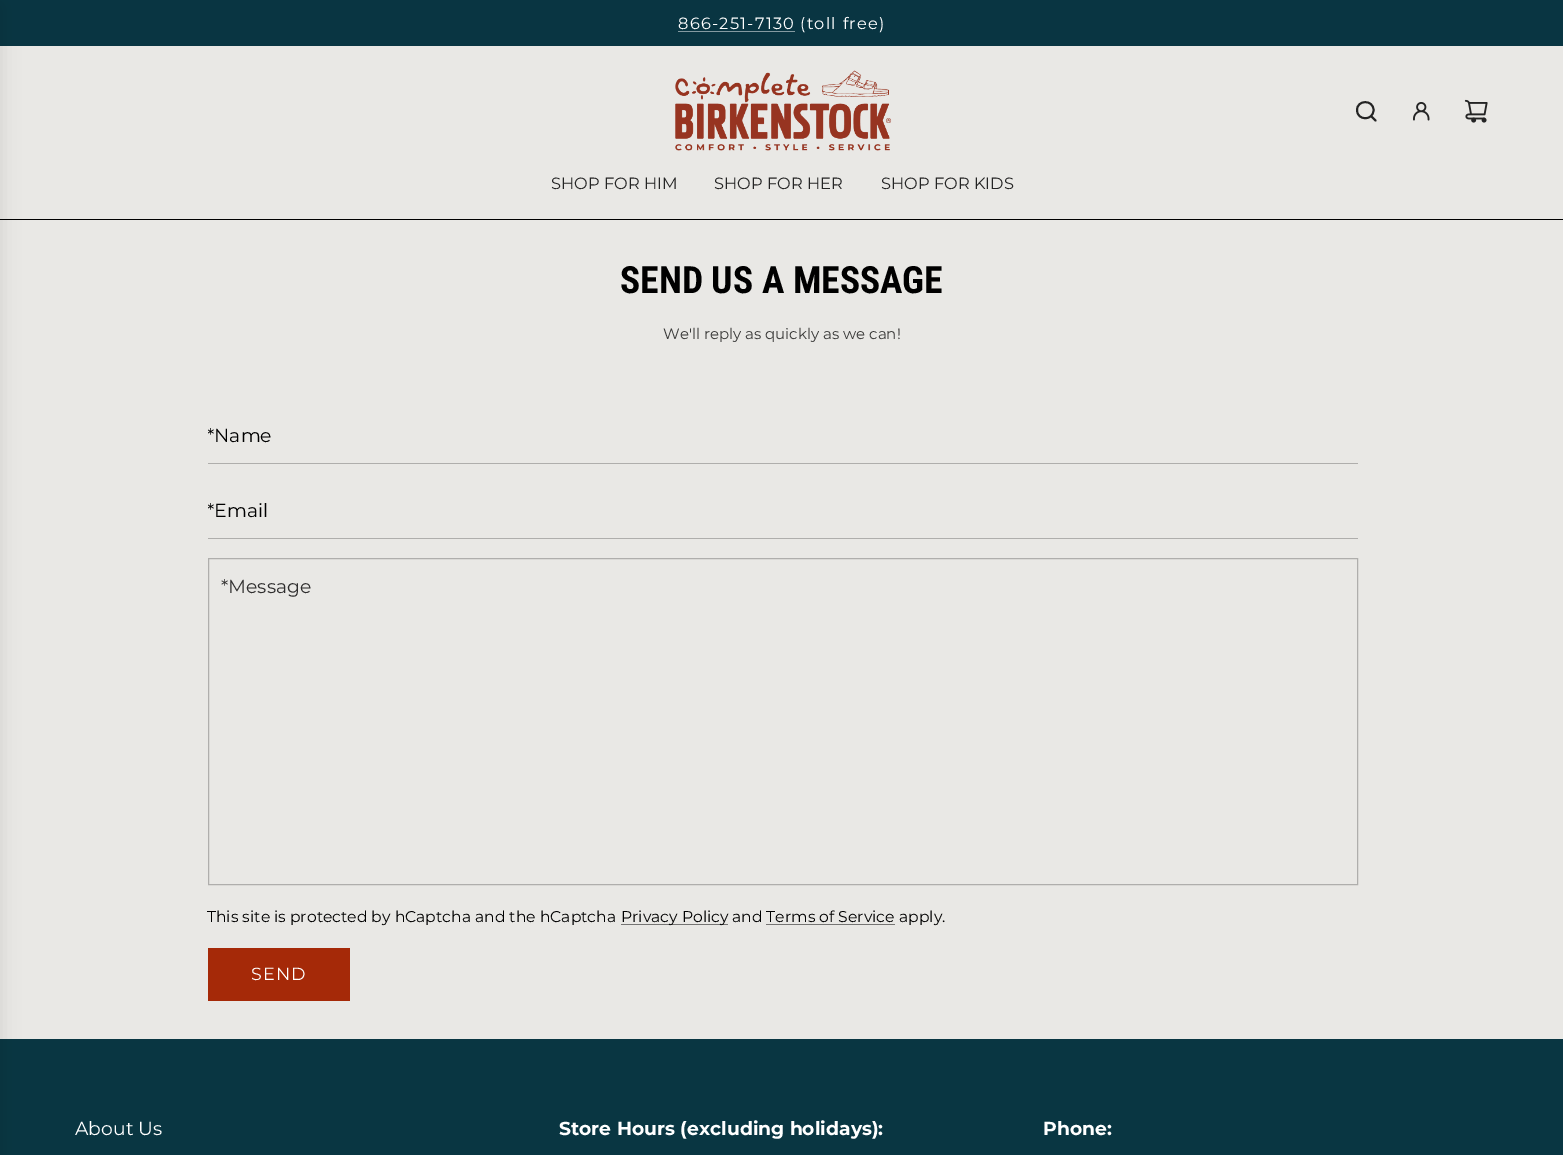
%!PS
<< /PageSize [1563 1155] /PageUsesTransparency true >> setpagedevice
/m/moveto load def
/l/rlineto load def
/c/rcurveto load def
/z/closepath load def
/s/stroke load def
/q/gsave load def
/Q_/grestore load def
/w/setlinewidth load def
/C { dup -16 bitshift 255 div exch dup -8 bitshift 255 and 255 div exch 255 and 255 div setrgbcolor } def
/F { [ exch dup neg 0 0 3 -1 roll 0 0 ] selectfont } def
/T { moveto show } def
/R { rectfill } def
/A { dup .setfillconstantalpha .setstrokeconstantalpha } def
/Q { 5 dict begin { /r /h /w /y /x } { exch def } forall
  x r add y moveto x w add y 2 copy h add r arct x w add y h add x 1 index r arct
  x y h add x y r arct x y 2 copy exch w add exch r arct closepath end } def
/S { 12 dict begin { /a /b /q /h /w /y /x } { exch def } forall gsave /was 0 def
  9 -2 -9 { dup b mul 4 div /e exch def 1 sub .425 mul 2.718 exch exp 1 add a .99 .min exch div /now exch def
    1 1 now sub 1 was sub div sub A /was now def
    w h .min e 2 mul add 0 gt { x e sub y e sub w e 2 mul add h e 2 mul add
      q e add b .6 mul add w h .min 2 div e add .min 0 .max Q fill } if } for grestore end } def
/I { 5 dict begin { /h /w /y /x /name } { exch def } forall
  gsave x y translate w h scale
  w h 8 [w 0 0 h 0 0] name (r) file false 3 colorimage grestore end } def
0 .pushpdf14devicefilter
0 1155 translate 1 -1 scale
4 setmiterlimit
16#E9E8E5 C
0 0 1563 1155 R
16#093542 C
0 0 1563 46 R
/Montserrat-Regular 16.25 F
16#FFFFFF C
678 29 m 1.25 0 (866-251-7130) ashow
16#849AA1 C
678 31 117 1 R
16#FFFFFF C
800 29 m 1.25 0 (\(toll free\)) ashow
16#000000 C
0 219 1563 1 R
16#093642 C
0 1039 1563 116 R
16#000000 C
-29 6 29 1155 0 9.5 .1 S
(1.rgb) 675 70 217 81 I
16#242424 C
1.9 w
1 setlinecap
1 setlinejoin
1371.5 116.5 m 4 4 l 1357 110 m 0 11 16.5 11 16.5 0 c 0 -10.5 -16.5 -10.5 -16.5 0 c z s
(2.rgb) 1413 102 17 19 I
(3.rgb) 1464 99 24 24 I
(SHOP FOR HIM) 551 189 T
(SHOP FOR HER) 714 189 T
(SHOP FOR KIDS) 881 189 T
/RobotoCondensed-Bold 37.5 F
16#000000 C
(SEND US A MESSAGE) 620 293 T
/Montserrat-Regular 15 F
16#3A3A39 C
(We'll reply as quickly as we can!) 663 339 T
16#AFAEAC C
208 463 1150 1 R
q
208 423 1137 23 rectclip
/Montserrat-Regular 18.75 F
16#000000 C
(*Name) 207 442 T
Q_
208 538 1150 1 R
q
208 498 1137 23 rectclip
/Montserrat-Regular 18.75 F
16#000000 C
(*Email) 207 517 T
Q_
1 w
0 setlinecap
0 setlinejoin
208.5 558.5 1149 326 rectstroke
/Montserrat-Regular 18.75 F
16#2F2E2E C
(*Message) 221 593 T
/Montserrat-Regular 15.6 F
16#000000 C
(This site is protected by hCaptcha and the hCaptcha) 207 922 T
16#757473 C
621 924 107 1 R
16#000000 C
(Privacy Policy) 621 922 T
(and Terms of Service) 732 922 T
(apply.) 899 922 T
16#757473 C
766 924 129 1 R
16#A52908 C
208 948 142 53 R
/Montserrat-Regular 17.5 F
16#FFFFFF C
251 980 m 1.25 0 (SEND) ashow
/Montserrat-Regular 18.75 F
(About Us) 75 1135 T
/Montserrat-Bold 18.75 F
(Store Hours \(excluding holidays\):) 559 1135 T
(Phone:) 1043 1135 T
.poppdf14devicefilter showpage
